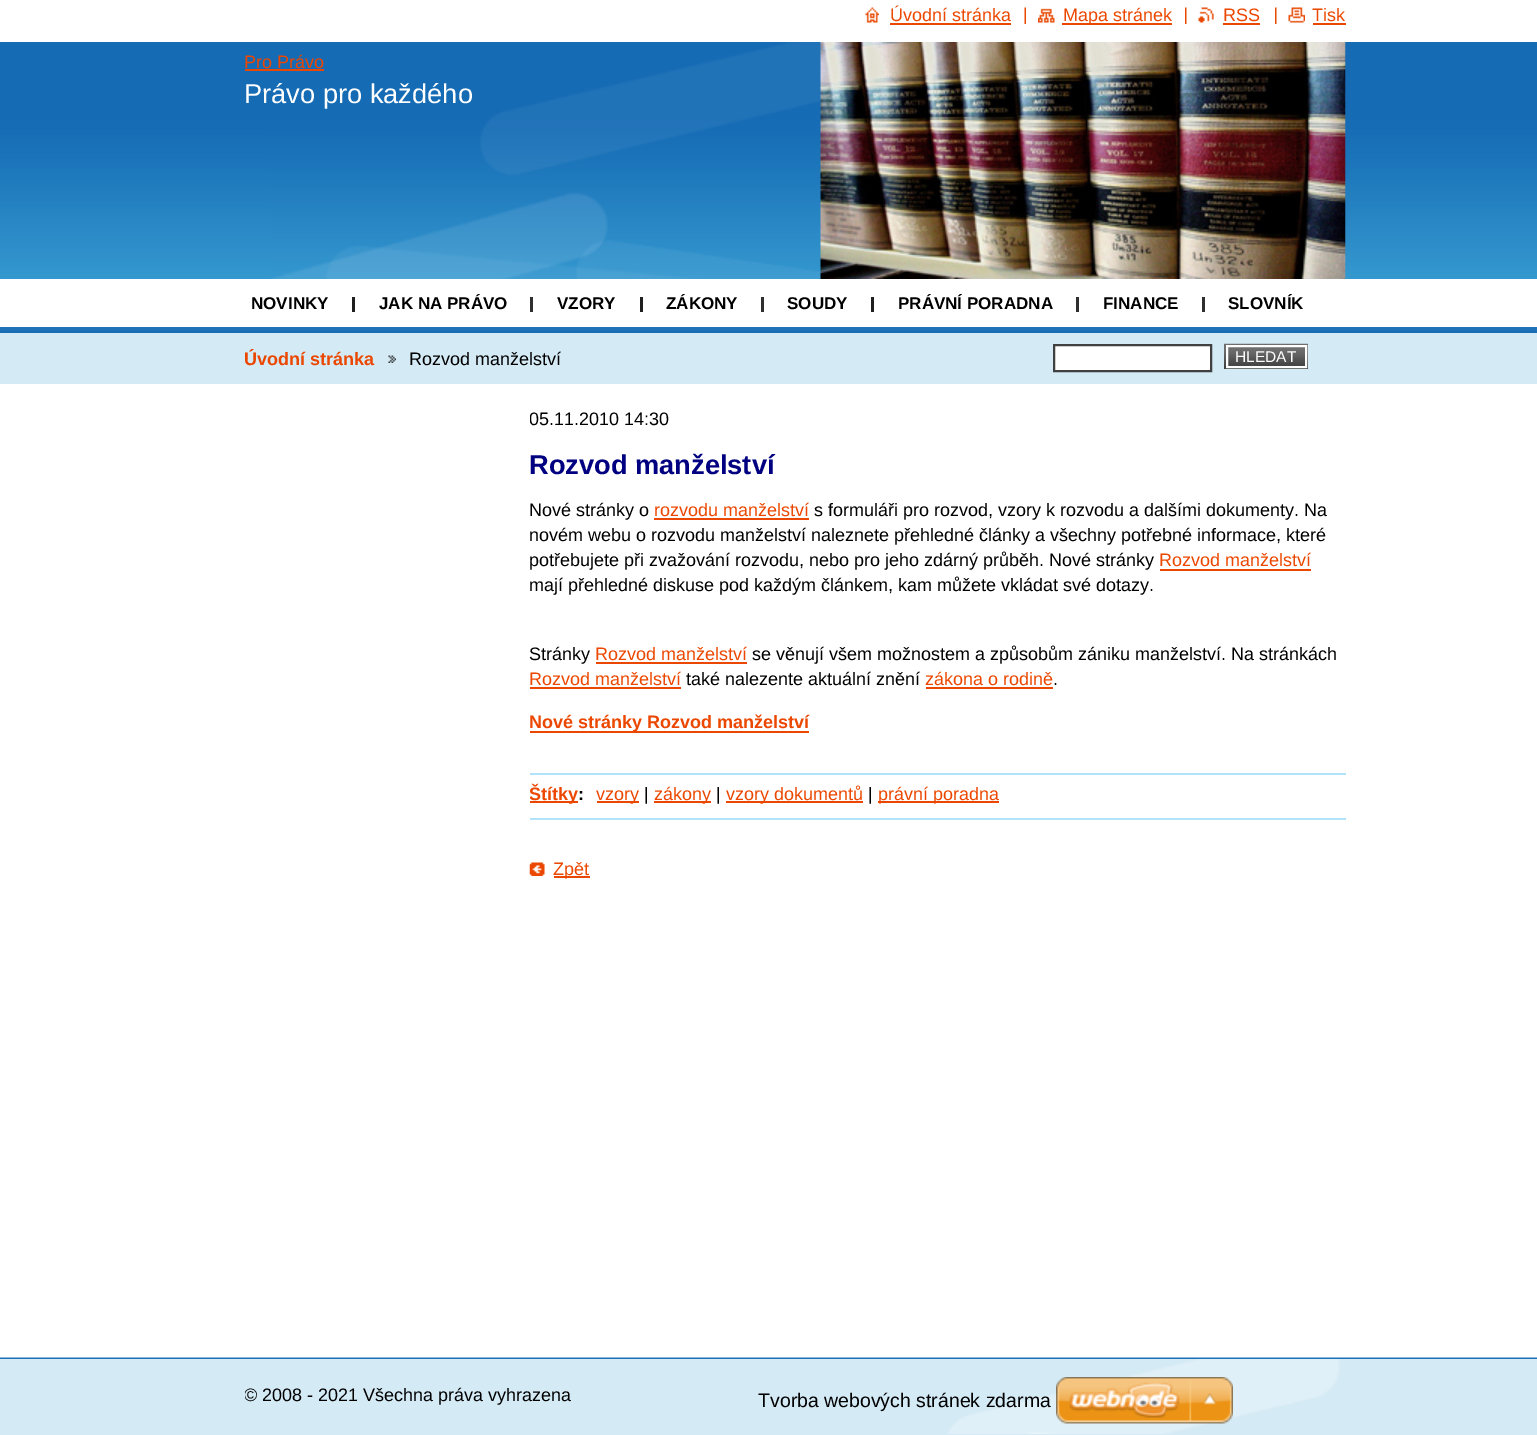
%!PS
<< /PageSize [1537 1435] >> setpagedevice
/m/moveto load def
/l/rlineto load def
/z/closepath load def
/f/fill load def
/s/stroke load def
/q/gsave load def
/Q_/grestore load def
/w/setlinewidth load def
/C { dup -16 bitshift 255 div exch dup -8 bitshift 255 and 255 div exch 255 and 255 div setrgbcolor } def
/F { [ exch dup neg 0 0 3 -1 roll 0 0 ] selectfont } def
/T { moveto show } def
/R { rectfill } def
/I { 5 dict begin { /h /w /y /x /name } { exch def } forall
  gsave x y translate w h scale
  w h 8 [w 0 0 h 0 0] name (r) file false 3 colorimage grestore end } def
0 1435 translate 1 -1 scale
4 setmiterlimit
16#D4EAF5 C
0 0 1537 1435 R
16#FFFFFF C
0 0 1537 1358 R
(1.rgb) 865 7 14 16 I
/LiberationSans-Regular 18 F
16#EC4700 C
(Úvodní stránka) 890 21 T
890 23 121 2 R
(2.rgb) 1024 7 2 17 I
(3.rgb) 1038 8 17 15 I
1062 23 110 2 R
(Mapa stránek) 1063 21 T
(4.rgb) 1185 7 2 17 I
(5.rgb) 1198 7 16 16 I
(RSS) 1223 21 T
1223 23 37 2 R
(4.rgb) 1275 7 2 17 I
(6.rgb) 1288 7 17 16 I
(Tisk) 1312 21 T
1313 23 33 2 R
(7.rgb) 0 42 1537 237 I
(8.rgb) 271 42 550 237 I
(Pro Právo) 244 68 T
245 69 79 2 R
/LiberationSans-Regular 27.25 F
16#FFFFFF C
(Právo pro každého) 244 103 T
(9.rgb) 820 42 526 237 I
/LiberationSans-Bold 17 F
16#000000 C
(NOVINKY) 251 309 T
16#1F1F1F C
352 297 3 15 R
16#000000 C
(JAK NA PRÁVO) 379 309 T
16#2F2F2F C
530 297 3 15 R
16#000000 C
(VZORY) 557 309 T
16#1F1F1F C
640 297 3 15 R
16#000000 C
(ZÁKONY) 666 309 T
16#2F2F2F C
761 297 3 15 R
16#000000 C
(SOUDY) 787 309 T
16#1F1F1F C
871 297 3 15 R
16#000000 C
(PRÁVNÍ PORADNA) 898 309 T
16#2F2F2F C
1076 297 3 15 R
16#000000 C
(FINANCE) 1103 309 T
16#2F2F2F C
1202 297 3 15 R
16#000000 C
(SLOVNÍK) 1228 309 T
16#D4EAF5 C
0 333 1537 51 R
(10.rgb) 0 327 1537 6 I
q
245 344 795 31 rectclip
/LiberationSans-Bold 18 F
16#EC4700 C
(Úvodní stránka) 244 365 T
Q_
(11.rgb) 388 355 8 8 I
/LiberationSans-Regular 18 F
16#000000 C
(Rozvod manželství) 409 365 T
16#FFFFFF C
1054 345 m 157 0 l 0 26 l -157 0 l z q f Q_
16#404040 C
2 w
s
1224 366 84 3 R
(12.rgb) 1224 343 84 23 I
(13.rgb) 1228 347 77 19 I
16#FFFFFF C
1227 346 79 21 rectstroke
/LiberationSans-Regular 15.5 F
(HLEDAT) 1235 362 T
q
530 407 816 513 rectclip
/LiberationSans-Regular 18 F
16#000000 C
(05.11.2010 14:30) 529 425 T
Q_
/LiberationSans-Bold 27.25 F
16#000080 C
(Rozvod manželství) 529 474 T
/LiberationSans-Regular 18 F
16#000000 C
(Nové stránky o) 529 516 T
16#EC4700 C
(rozvodu manželství) 654 516 T
654 518 155 2 R
16#000000 C
(s formuláři pro rozvod, vzory k rozvodu a dalšími dokumenty. Na) 814 516 T
(novém webu o rozvodu manželství naleznete přehledné články a všechny potřebné informace, které) 529 541 T
(potřebujete při zvažování rozvodu, nebo pro jeho zdárný průběh. Nové stránky) 529 566 T
16#EC4700 C
(Rozvod manželství) 1159 566 T
1160 569 151 2 R
16#000000 C
(mají přehledné diskuse pod každým článkem, kam můžete vkládat své dotazy.) 529 591 T
(Stránky) 529 660 T
16#EC4700 C
(Rozvod manželství) 595 660 T
596 662 151 2 R
16#000000 C
(se věnují všem možnostem a způsobům zániku manželství. Na stránkách) 752 660 T
16#EC4700 C
(Rozvod manželství) 529 685 T
530 687 151 2 R
16#000000 C
(také nalezente aktuální znění) 686 685 T
16#EC4700 C
(zákona o rodině) 925 685 T
926 687 127 2 R
16#000000 C
(.) 1053 685 T
16#EC4700 C
530 731 279 2 R
/LiberationSans-Bold 18 F
(Nové stránky Rozvod manželství) 529 728 T
16#B1E4FB C
530 773 816 2 R
530 818 816 2 R
16#EC4700 C
530 801 48 2 R
q
530 407 816 513 rectclip
(Štítky) 529 800 T
Q_
16#000000 C
(:) 578 800 T
16#EC4700 C
597 801 42 2 R
/LiberationSans-Regular 18 F
(vzory) 596 800 T
16#000000 C
(|) 644 800 T
16#EC4700 C
654 801 57 2 R
(zákony) 654 800 T
16#000000 C
(|) 716 800 T
16#EC4700 C
726 801 137 2 R
(vzory dokumentů) 726 800 T
16#000000 C
(|) 868 800 T
16#EC4700 C
878 801 121 2 R
(právní poradna) 878 800 T
(14.rgb) 529 862 16 14 I
554 876 36 2 R
(Zpět) 553 875 T
(15.rgb) 0 1357 1537 2 I
(16.rgb) 948 1359 392 75 I
q
245 1385 705 22 rectclip
16#000000 C
(© 2008 - 2021 Všechna práva vyhrazena) 244 1401 T
Q_
/LiberationSans-Regular 19.5 F
16#000000 C
(Tvorba webových stránek zdarma) 758 1407 T
(17.rgb) 1056 1377 177 47 I
showpage
